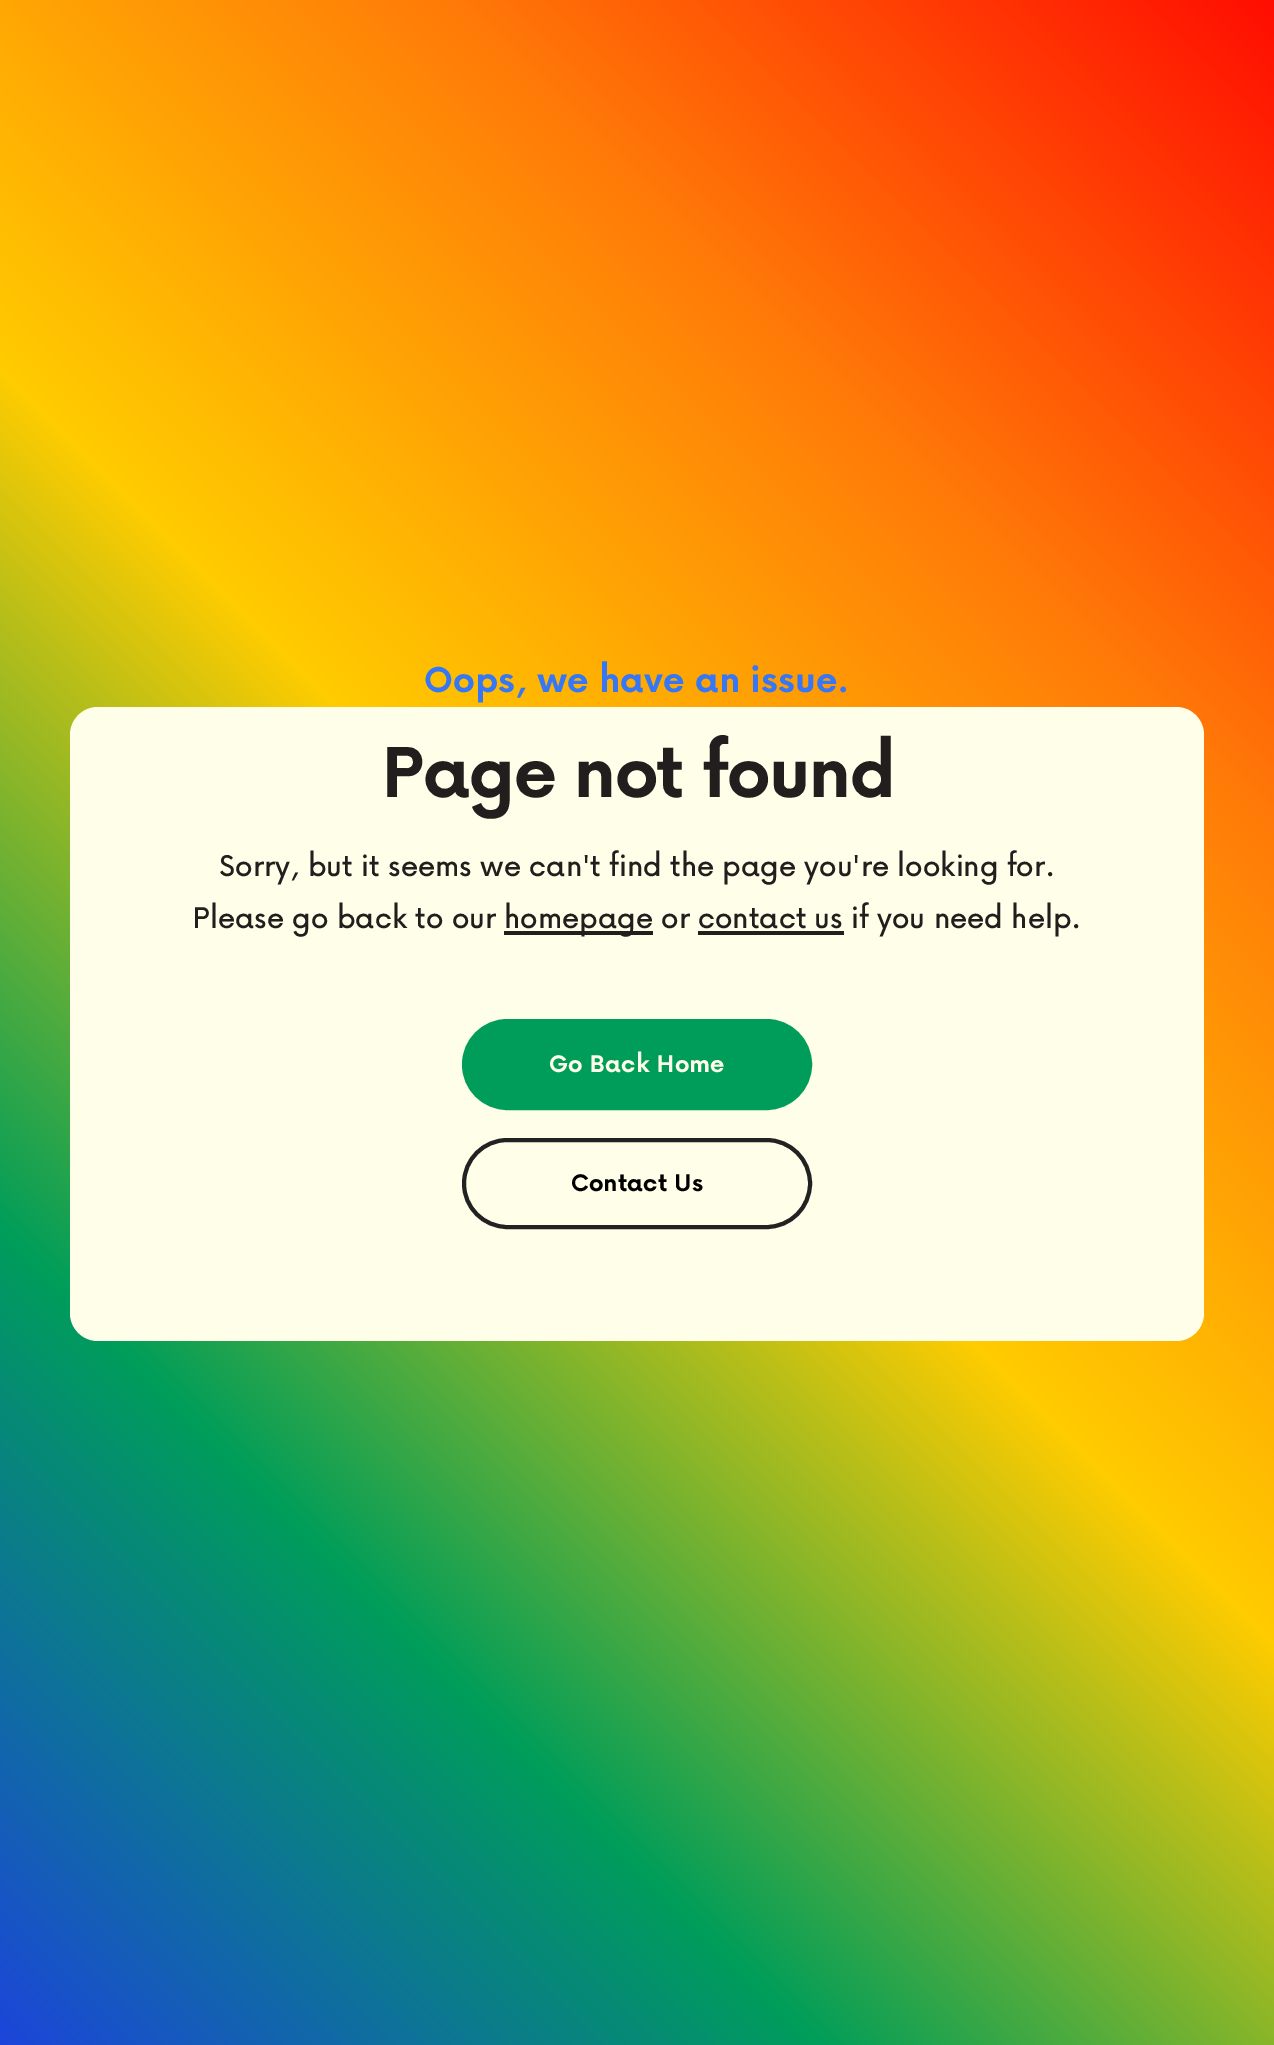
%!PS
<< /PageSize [1274 2045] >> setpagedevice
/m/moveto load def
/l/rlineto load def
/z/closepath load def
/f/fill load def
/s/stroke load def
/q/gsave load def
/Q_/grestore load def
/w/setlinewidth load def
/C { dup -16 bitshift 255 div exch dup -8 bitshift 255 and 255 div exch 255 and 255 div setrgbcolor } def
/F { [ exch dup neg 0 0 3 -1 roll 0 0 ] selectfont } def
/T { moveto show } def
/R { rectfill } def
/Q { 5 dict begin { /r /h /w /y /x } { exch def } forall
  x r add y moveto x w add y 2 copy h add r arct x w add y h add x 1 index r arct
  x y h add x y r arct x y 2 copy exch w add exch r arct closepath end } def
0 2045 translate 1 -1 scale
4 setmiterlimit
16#FFFFFF C
0 0 1274 2045 R
q 0 0 m 1274 0 l 0 2045 l -1274 0 l z clip newpath
<< /ShadingType 2 /ColorSpace /DeviceRGB /Coords [-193 1853 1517 143] /Extend [true true] /Function << /FunctionType 3 /Domain [0 1] /Functions [<< /FunctionType 2 /Domain [0 1] /C0 [.11 .271 .859] /C1 [0 .616 .353] /N 1 >> << /FunctionType 2 /Domain [0 1] /C0 [0 .616 .353] /C1 [1 .8 0] /N 1 >> << /FunctionType 2 /Domain [0 1] /C0 [1 .8 0] /C1 [1 .478 .031] /N 1 >> << /FunctionType 2 /Domain [0 1] /C0 [1 .478 .031] /C1 [1 0 0] /N 1 >>] /Bounds [.24 .49 .73] /Encode [0 1 0 1 0 1 0 1] >> >> shfill Q_
16#FFFEE8 C
70 707 1134 634 28 Q f
/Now-Bold 42 F
16#3577F4 C
(Oops, we have an issue.) 424 692 T
/Now-Bold 84 F
16#211E1D C
380 797 m -1.75 0 (Page not found) ashow
/Now-Medium 35 F
(Sorry, but it seems we can't find the page you're looking for.) 219 876 T
(Please go back to our) 192 928 T
504 931 149 4 R
(homepage or contact us if you need help.) 504 928 T
698 931 146 4 R
16#009D5A C
464 1021 346 87 43.5 Q q f Q_
4 w
s
/Now-Bold 28 F
16#FFFEE8 C
(Go Back Home) 549 1072 T
16#222222 C
464 1140 346 87 43.5 Q s
16#000000 C
(Contact Us) 571 1191 T
showpage
